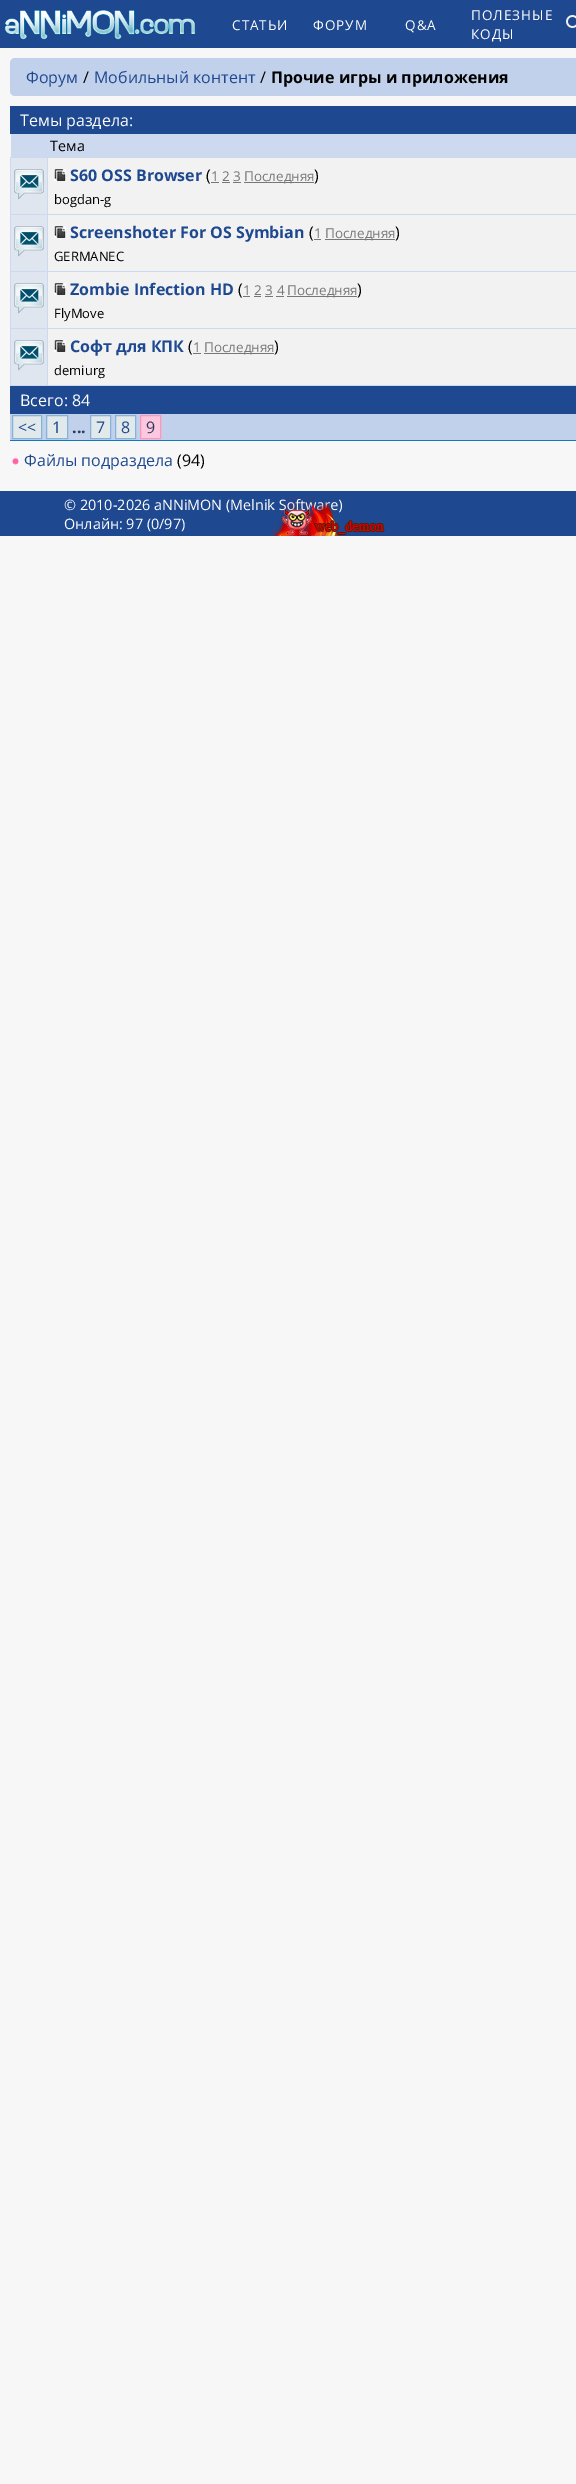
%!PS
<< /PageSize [576 2484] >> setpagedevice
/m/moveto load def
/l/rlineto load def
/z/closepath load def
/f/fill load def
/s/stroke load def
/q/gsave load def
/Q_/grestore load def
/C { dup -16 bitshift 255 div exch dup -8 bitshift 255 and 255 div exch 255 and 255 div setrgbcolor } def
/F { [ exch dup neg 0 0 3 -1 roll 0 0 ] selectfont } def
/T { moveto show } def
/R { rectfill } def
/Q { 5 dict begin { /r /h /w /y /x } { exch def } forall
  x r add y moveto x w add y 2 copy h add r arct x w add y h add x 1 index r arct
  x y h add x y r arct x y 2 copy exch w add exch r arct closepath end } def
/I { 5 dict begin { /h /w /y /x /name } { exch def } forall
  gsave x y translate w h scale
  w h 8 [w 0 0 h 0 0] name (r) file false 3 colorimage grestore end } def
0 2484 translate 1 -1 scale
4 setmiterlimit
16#F7F7F7 C
0 0 576 2484 R
16#1E488F C
0 0 576 48 R
(1.rgb) 4 9 192 31 I
/OpenSans-Regular 13.5 F
16#FFFFFF C
232 30 m 1 0 (СТАТЬИ) ashow
313 30 m 1 0 (ФОРУМ) ashow
405 30 m 1 0 (Q&A) ashow
471 20 m 1 0 (ПОЛЕЗНЫЕ) ashow
471 39 m 1 0 (КОДЫ) ashow
(2.rgb) 566 15 10 13 I
16#C2D1EB C
10 58 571 38 5 Q f
/OpenSans-Regular 16 F
16#1E488F C
(Форум) 26 83 T
16#000000 C
(/) 83 83 T
16#1E488F C
(Мобильный контент) 94 83 T
16#000000 C
(/) 260 83 T
/OpenSans-Bold 16 F
(Прочие игры и приложения) 271 83 T
16#1E488F C
10 106 566 28 R
/OpenSans-Regular 16 F
16#FFFFFF C
(Темы раздела:) 20 126 T
16#CCD9EF C
11 134 37 23 R
48 134 528 24 R
/OpenSans-Regular 14.4 F
16#000000 C
(Тема) 50 151 T
16#E0E6F0 C
11 158 36 56 R
16#CCD9EF C
47 214 529 1 R
47 271 529 1 R
47 328 529 1 R
47 385 529 1 R
47 328 1 58 R
10 328 38 1 R
47 271 1 58 R
10 271 38 1 R
47 214 1 58 R
10 214 38 1 R
47 157 1 58 R
10 157 38 1 R
10 385 38 1 R
10 328 1 58 R
10 271 1 58 R
10 214 1 58 R
10 157 1 58 R
(3.rgb) 14 169 30 31 I
16#F2F2F2 C
48 158 528 56 R
(4.rgb) 54 169 12 12 I
/OpenSans-Bold 16 F
16#1E488F C
(S60 OSS Browser) 70 181 T
/OpenSans-Regular 16 F
16#000000 C
(\() 206 181 T
/OpenSans-Regular 13.5 F
16#777777 C
(1 2 3) 211 181 T
211 182 8 1 R
222 182 8 1 R
233 182 8 1 R
244 182 70 1 R
(Последняя) 244 181 T
/OpenSans-Regular 16 F
16#000000 C
(\)) 314 181 T
/OpenSans-Regular 13 F
(bogdan-g) 54 204 T
16#E0E6F0 C
11 215 36 56 R
(3.rgb) 14 226 30 31 I
16#F2F2F2 C
48 215 528 56 R
(4.rgb) 54 226 12 12 I
/OpenSans-Bold 16 F
16#1E488F C
(Screenshoter For OS Symbian) 70 238 T
/OpenSans-Regular 16 F
16#000000 C
(\() 309 238 T
/OpenSans-Regular 13.5 F
16#777777 C
(1) 314 238 T
314 239 7 1 R
325 239 70 1 R
(Последняя) 325 238 T
/OpenSans-Regular 16 F
16#000000 C
(\)) 395 238 T
/OpenSans-Regular 13 F
(GERMANEC) 54 261 T
16#E0E6F0 C
11 272 36 56 R
(3.rgb) 14 283 30 31 I
16#F2F2F2 C
48 272 528 56 R
(4.rgb) 54 283 12 12 I
/OpenSans-Bold 16 F
16#1E488F C
(Zombie Infection HD) 70 295 T
/OpenSans-Regular 16 F
16#000000 C
(\() 238 295 T
/OpenSans-Regular 13.5 F
16#777777 C
(1 2 3 4) 243 295 T
243 296 7 1 R
254 296 7 1 R
265 296 8 1 R
276 296 8 1 R
287 296 70 1 R
(Последняя) 287 295 T
/OpenSans-Regular 16 F
16#000000 C
(\)) 357 295 T
/OpenSans-Regular 13 F
(FlyMove) 54 318 T
16#E0E6F0 C
11 329 36 56 R
(3.rgb) 14 340 30 31 I
16#F2F2F2 C
48 329 528 56 R
(4.rgb) 54 340 12 12 I
/OpenSans-Bold 16 F
16#1E488F C
(Софт для КПК) 70 352 T
/OpenSans-Regular 16 F
16#000000 C
(\() 188 352 T
/OpenSans-Regular 13.5 F
16#777777 C
(1) 193 352 T
193 353 8 1 R
204 353 70 1 R
(Последняя) 204 352 T
/OpenSans-Regular 16 F
16#000000 C
(\)) 274 352 T
/OpenSans-Regular 13 F
(demiurg) 54 375 T
16#1E488F C
10 386 566 28 R
/OpenSans-Regular 16 F
16#FFFFFF C
(Всего: 84) 20 406 T
16#C2D1EB C
10 414 566 26 R
16#1279C1 C
10 440 566 1 R
16#E1E9EA C
12.5 415.5 m 29 0 l 0 23 l -29 0 l z q f Q_
16#86B3D9 C
s
16#1E488F C
(<<) 18 433 T
16#E1E9EA C
46.5 415.5 m 21 0 l 0 23 l -21 0 l z q f Q_
16#86B3D9 C
s
16#1E488F C
(1) 52 433 T
/OpenSans-Bold 16 F
16#263D64 C
(...) 72 433 T
16#E1E9EA C
90.5 415.5 m 20 0 l 0 23 l -20 0 l z q f Q_
16#86B3D9 C
s
/OpenSans-Regular 16 F
16#1E488F C
(7) 96 433 T
16#E1E9EA C
115.5 415.5 m 20 0 l 0 23 l -20 0 l z q f Q_
16#86B3D9 C
s
16#1E488F C
(8) 121 433 T
16#FFC7DD C
140.5 415.5 m 20 0 l 0 23 l -20 0 l z q f Q_
16#FF94BF C
s
16#263D64 C
(9) 146 433 T
(5.rgb) 12 457 7 8 I
16#1E488F C
(Файлы подраздела) 24 466 T
16#000000 C
(\(94\)) 177 466 T
16#1E488F C
0 491 576 45 R
/OpenSans-Regular 14.4 F
16#FFFFFF C
(© 2010-2026 aNNiMON \(Melnik Software\)) 64 510 T
(6.rgb) 273 496 112 40 I
(Онлайн: 97 \(0/97\)) 64 529 T
showpage
